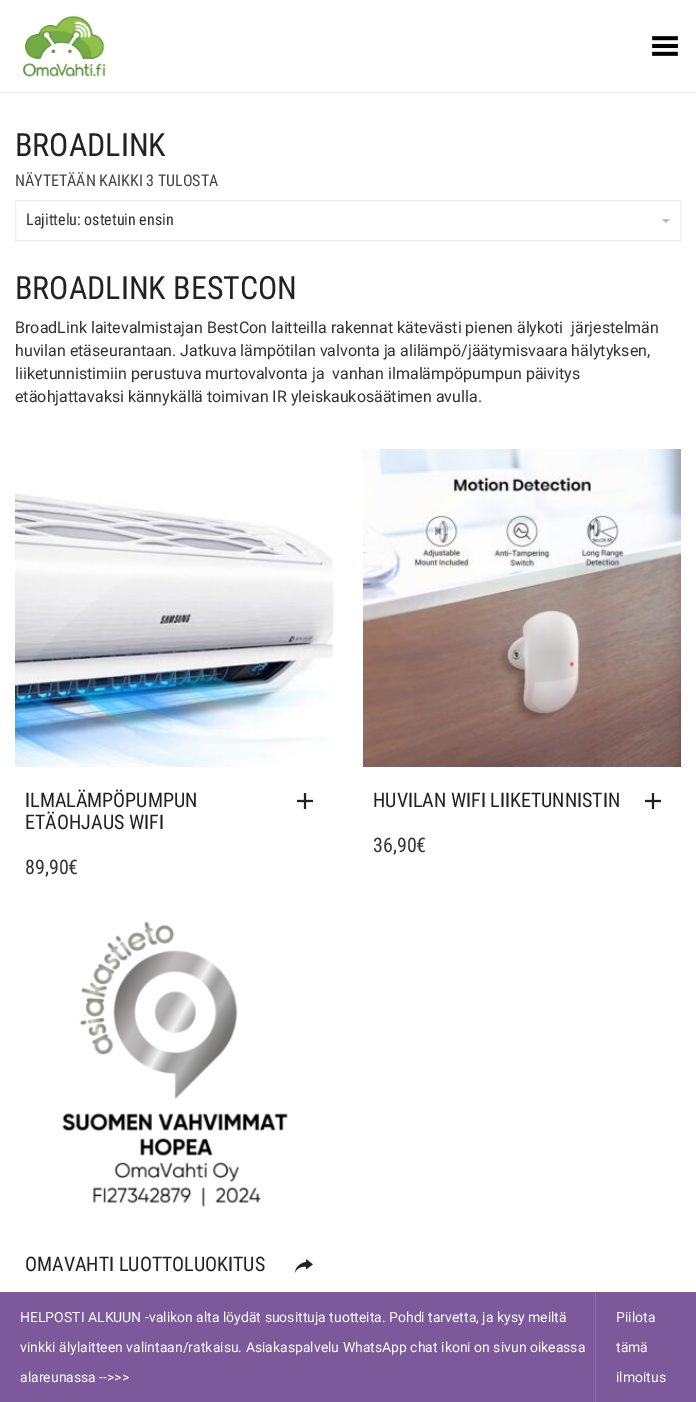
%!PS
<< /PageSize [696 1402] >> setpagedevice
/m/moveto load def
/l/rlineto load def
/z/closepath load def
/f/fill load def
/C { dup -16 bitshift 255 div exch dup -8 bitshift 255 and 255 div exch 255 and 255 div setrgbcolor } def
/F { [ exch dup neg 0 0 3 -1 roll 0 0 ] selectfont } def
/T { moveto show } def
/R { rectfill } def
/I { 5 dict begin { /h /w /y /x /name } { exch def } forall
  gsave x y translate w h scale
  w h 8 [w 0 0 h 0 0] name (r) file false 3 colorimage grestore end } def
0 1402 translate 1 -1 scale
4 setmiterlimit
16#FFFFFF C
0 0 696 1402 R
16#EEEEEE C
0 92 696 1 R
(1.rgb) 22 15 84 62 I
(2.rgb) 652 36 26 20 I
/RobotoCondensed-Regular 32 F
16#222222 C
(BROADLINK) 15 156 T
/RobotoCondensed-Regular 16 F
16#444444 C
(NÄYTETÄÄN KAIKKI 3 TULOSTA) 15 186 T
16#EEEEEE C
15.5 200.5 665 40 rectstroke
16#333333 C
(Lajittelu: ostetuin ensin) 26 225 T
16#BBBBBB C
662 219 m 8 0 l -4 4 l z f
/RobotoCondensed-Regular 32 F
16#222222 C
(BROADLINK BESTCON) 15 299 T
/Roboto-Regular 16 F
16#333333 C
(BroadLink laitevalmistajan BestCon laitteilla rakennat kätevästi pienen älykoti  järjestelmän) 15 333 T
(huvilan etäseurantaan. Jatkuva lämpötilan valvonta ja alilämpö/jäätymisvaara hälytyksen,) 15 356 T
(liiketunnistimiin perustuva murtovalvonta ja  vanhan ilmalämpöpumpun päivitys) 15 379 T
(etäohjattavaksi kännykällä toimivan IR yleiskaukosäätimen avulla.) 15 402 T
(3.rgb) 15 493 318 274 I
/RobotoCondensed-Regular 20 F
16#222222 C
(ILMALÄMPÖPUMPUN) 25 807 T
(ETÄOHJAUS WIFI) 25 829 T
(4.rgb) 297 793 16 16 I
16#333333 C
(89,90€) 25 874 T
(5.rgb) 363 449 318 318 I
16#222222 C
(HUVILAN WIFI LIIKETUNNISTIN) 373 807 T
(4.rgb) 645 793 16 16 I
16#333333 C
(36,90€) 373 852 T
(6.rgb) 62 921 226 286 I
16#222222 C
(OMAVAHTI LUOTTOLUOKITUS) 25 1271 T
(7.rgb) 295 1259 18 14 I
16#7B599B C
0 1292 696 110 R
/Roboto-Regular 14 F
16#FFFFFF C
(HELPOSTI ALKUUN -valikon alta löydät suosittuja tuotteita. Pohdi tarvetta, ja kysy meiltä) 20 1322 T
16#8F70AD C
595 1292 1 110 R
16#FFFFFF C
(Piilota) 616 1322 T
(tämä) 616 1352 T
(ilmoitus) 616 1382 T
(vinkki älylaitteen valintaan/ratkaisu. Asiakaspalvelu WhatsApp chat ikoni on sivun oikeassa) 20 1352 T
(alareunassa -->>>) 20 1382 T
showpage
